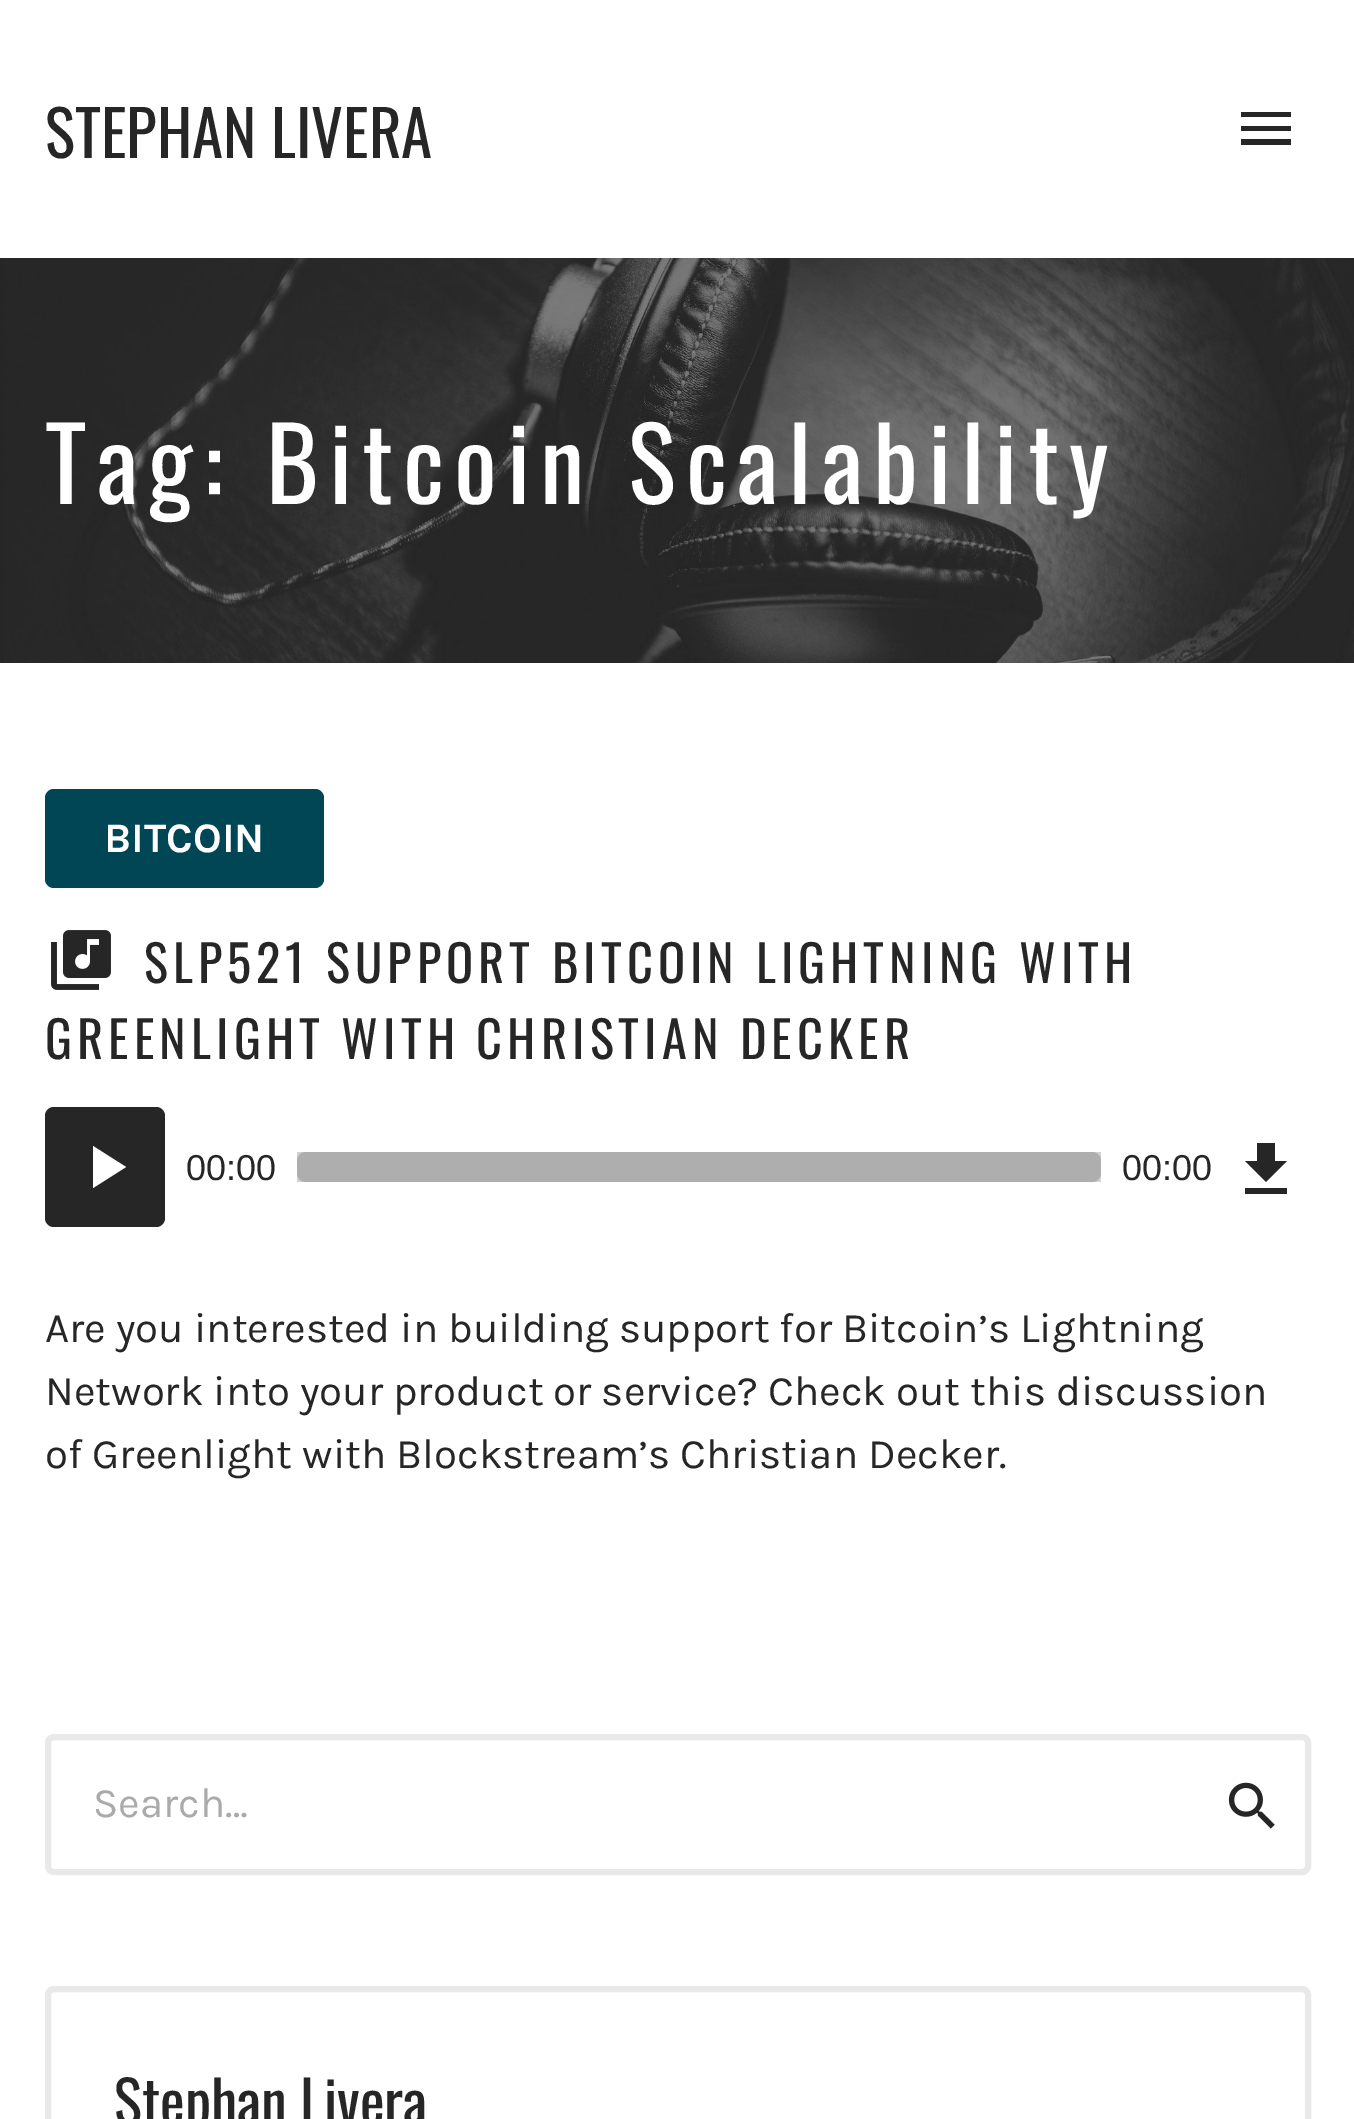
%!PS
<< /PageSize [1354 2119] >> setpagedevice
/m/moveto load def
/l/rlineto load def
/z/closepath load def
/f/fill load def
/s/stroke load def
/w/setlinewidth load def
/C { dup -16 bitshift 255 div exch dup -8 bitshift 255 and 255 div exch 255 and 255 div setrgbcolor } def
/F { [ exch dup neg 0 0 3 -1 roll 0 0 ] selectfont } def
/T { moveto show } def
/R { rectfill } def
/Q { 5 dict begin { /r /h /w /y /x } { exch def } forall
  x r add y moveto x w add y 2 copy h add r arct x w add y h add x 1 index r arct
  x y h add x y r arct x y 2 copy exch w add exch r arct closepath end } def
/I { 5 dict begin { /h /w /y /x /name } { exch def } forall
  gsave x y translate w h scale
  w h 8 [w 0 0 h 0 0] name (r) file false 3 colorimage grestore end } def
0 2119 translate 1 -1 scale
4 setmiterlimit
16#FFFFFF C
0 0 1354 2119 R
/Oswald-Regular 63 F
16#262626 C
(STEPHAN LIVERA) 45 158 T
1241 112 m 50 0 l 0 5 l -50 0 l z 1241 126 m 50 0 l 0 5 l -50 0 l z 1241 139 m 50 0 l 0 6 l -50 0 l z f
0 258 4 405 R
(1.rgb) 4 258 1350 405 I
/Oswald-Regular 100.75 F
16#FFFFFF C
45 504 m 10.1 0 (Tag: Bitcoin Scalability) ashow
16#014655 C
45 789 279 99 9 Q f
/Karla-Bold 42 F
16#FFFFFF C
(BITCOIN) 104 852 T
(2.rgb) 51 930 60 60 I
/Oswald-Regular 50.4 F
16#262626 C
144 983 m 5.05 0 (SLP521 SUPPORT BITCOIN LIGHTNING WITH) ashow
45 1059 m 5.05 0 (GREENLIGHT WITH CHRISTIAN DECKER) ashow
45 1107 120 120 9 Q f
16#FFFFFF C
93 1146 m 0 42 l 33 -21 l z f
/LiberationSans-Regular 36 F
16#262626 C
(00:00) 186 1180 T
16#D2D2D2 C
297 1152 804 30 R
16#AEAEAE C
297 1152 804 30 9 Q f
16#262626 C
(00:00) 1122 1180 T
1245 1194 m 42 0 l 0 -6 l -42 0 l z 1287 1161 m -12 0 l 0 -18 l -18 0 l 0 18 l -12 0 l 21 21 l z f
/Karla-Regular 42 F
(Are you interested in building support for Bitcoin’s Lightning) 45 1342 T
(Network into your product or service? Check out this discussion) 45 1405 T
(of Greenlight with Blockstream’s Christian Decker.) 45 1468 T
16#E9E9E9 C
6 w
48 1737 1260 135 6 Q s
16#AAAAAA C
(Search…) 93 1817 T
(3.rgb) 1228 1782 47 47 I
16#E9E9E9 C
48 1989 1260 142 6 Q s
/Oswald-Regular 58.75 F
16#262626 C
(Stephan Livera) 114 2125 T
showpage
